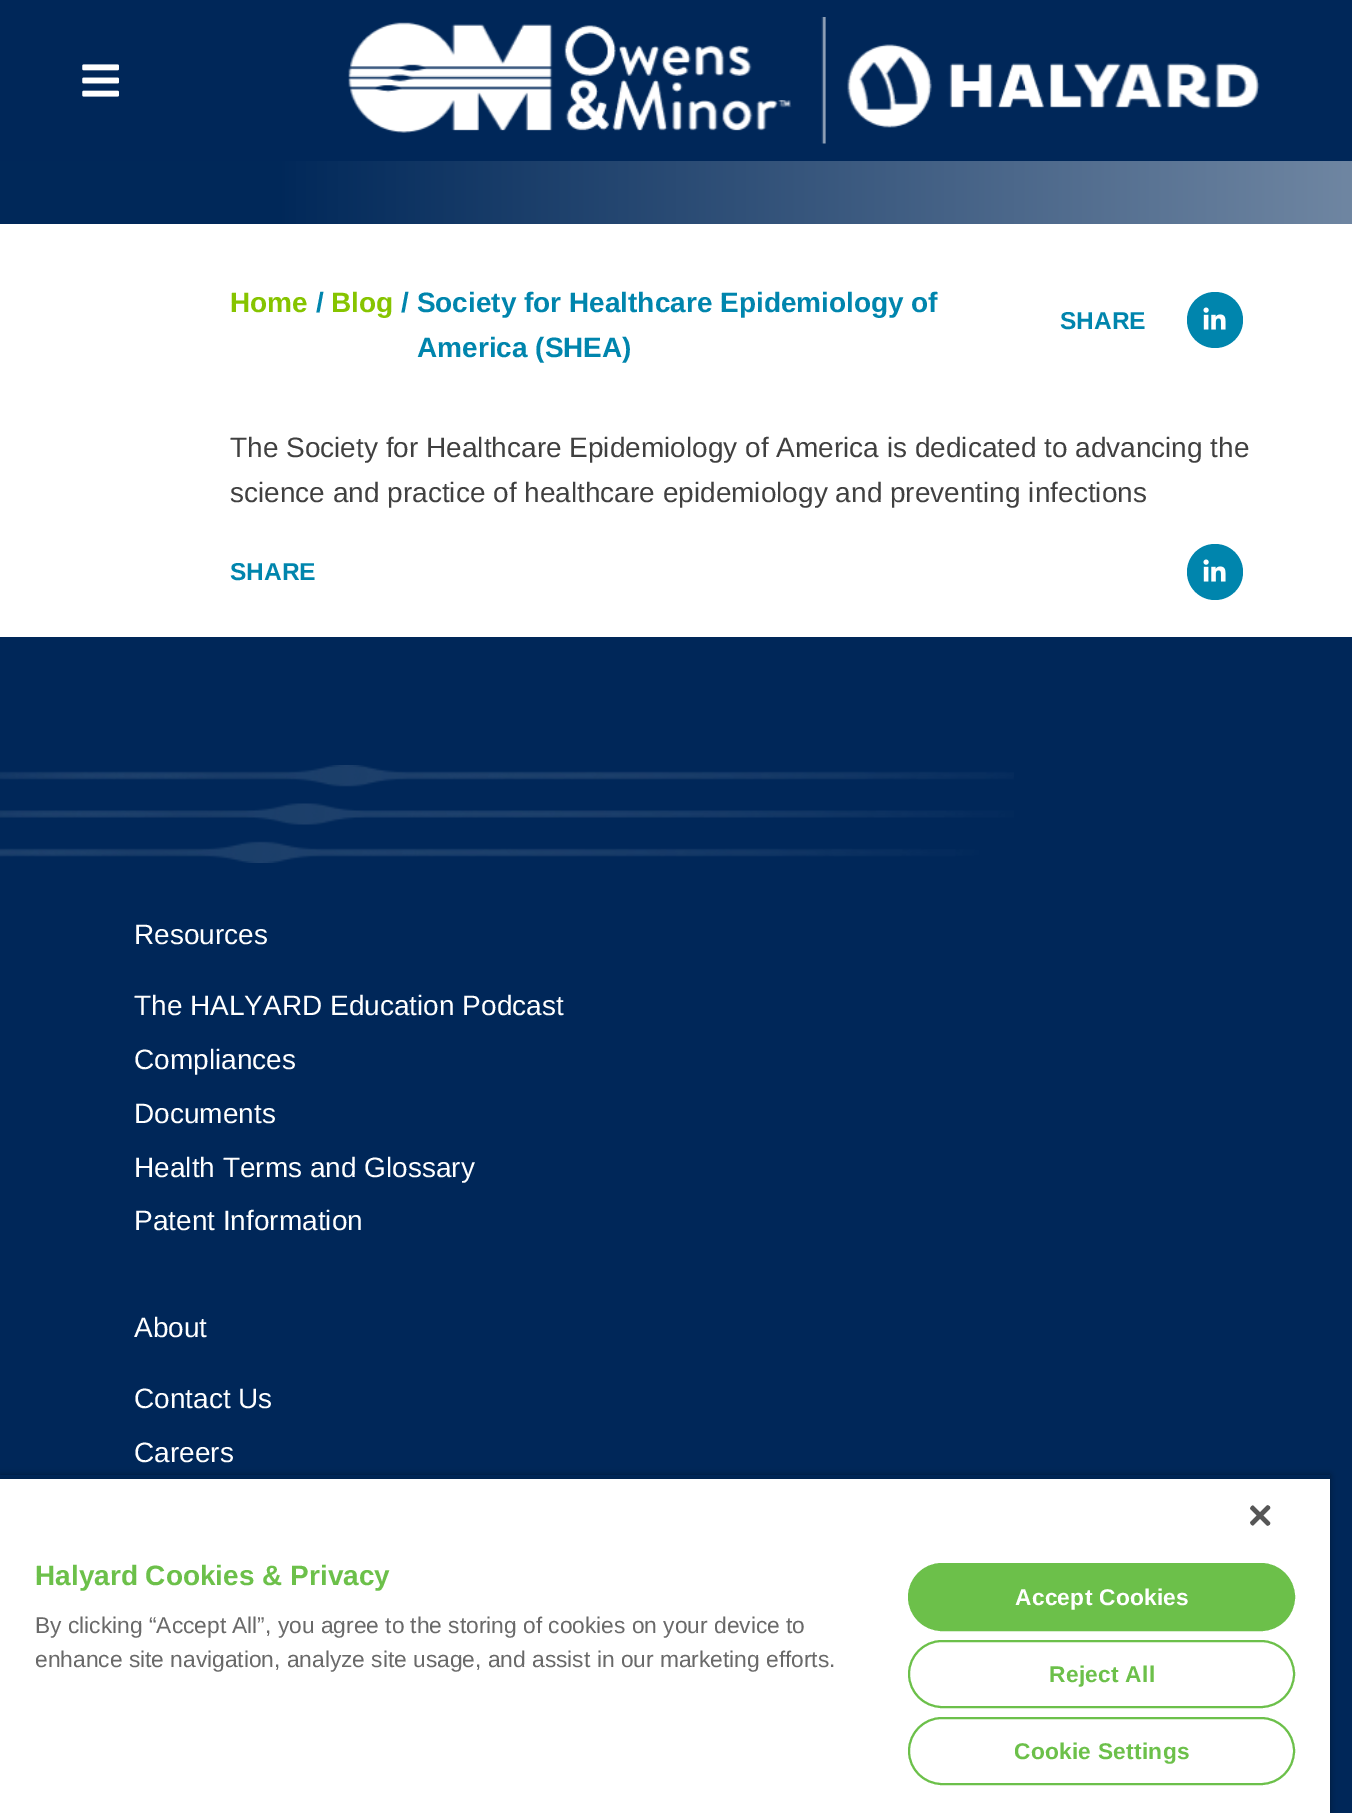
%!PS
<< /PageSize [1352 1813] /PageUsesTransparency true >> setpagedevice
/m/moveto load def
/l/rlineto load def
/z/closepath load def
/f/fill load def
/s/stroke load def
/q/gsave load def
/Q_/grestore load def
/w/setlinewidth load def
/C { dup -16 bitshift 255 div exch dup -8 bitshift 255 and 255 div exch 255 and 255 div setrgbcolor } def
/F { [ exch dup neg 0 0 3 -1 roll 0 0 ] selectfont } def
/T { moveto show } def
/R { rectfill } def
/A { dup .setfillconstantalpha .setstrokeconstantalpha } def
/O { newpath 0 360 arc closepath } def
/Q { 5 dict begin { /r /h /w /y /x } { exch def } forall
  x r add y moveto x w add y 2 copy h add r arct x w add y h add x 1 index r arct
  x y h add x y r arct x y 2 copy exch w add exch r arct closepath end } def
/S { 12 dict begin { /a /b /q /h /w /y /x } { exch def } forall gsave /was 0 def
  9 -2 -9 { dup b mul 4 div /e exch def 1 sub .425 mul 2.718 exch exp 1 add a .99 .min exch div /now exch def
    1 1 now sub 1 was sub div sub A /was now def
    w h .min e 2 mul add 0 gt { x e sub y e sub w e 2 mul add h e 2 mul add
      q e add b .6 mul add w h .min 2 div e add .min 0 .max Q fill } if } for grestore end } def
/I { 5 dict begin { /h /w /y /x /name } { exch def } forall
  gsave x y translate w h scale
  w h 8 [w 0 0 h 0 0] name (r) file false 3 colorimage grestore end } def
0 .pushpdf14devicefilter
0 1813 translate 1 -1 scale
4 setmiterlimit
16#FFFFFF C
0 0 1352 1813 R
16#002759 C
0 0 1352 161 R
(1.rgb) 82 64 37 33 I
(2.rgb) 348 17 912 127 I
q 0 161 m 1352 0 l 0 63 l -1352 0 l z clip newpath
<< /ShadingType 2 /ColorSpace /DeviceRGB /Coords [0 -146 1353 -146] /Extend [true true] /Function << /FunctionType 3 /Domain [0 1] /Functions [<< /FunctionType 2 /Domain [0 1] /C0 [0 .157 .349] /C1 [0 .157 .349] /N 1 >> << /FunctionType 2 /Domain [0 1] /C0 [0 .157 .349] /C1 [.435 .525 .635] /N 1 >>] /Bounds [.2] /Encode [0 1 0 1] >> >> shfill Q_
/LiberationSans-Bold 28 F
16#86C400 C
(Home) 230 312 T
16#0085AD C
(/) 316 312 T
16#86C400 C
(Blog) 331 312 T
16#0085AD C
(/ Society for Healthcare Epidemiology of) 401 312 T
(America \(SHEA\)) 417 357 T
/LiberationSans-Bold 24.5 F
(SHARE) 1060 329 T
1215 320 28 O f
(3.rgb) 1203 307 23 23 I
/LiberationSans-Regular 28 F
16#404040 C
(The Society for Healthcare Epidemiology of America is dedicated to advancing the) 230 457 T
(science and practice of healthcare epidemiology and preventing infections) 230 502 T
/LiberationSans-Bold 24.5 F
16#0085AD C
(SHARE) 230 580 T
1215 572 28 O f
(3.rgb) 1203 559 23 23 I
16#002759 C
0 637 1352 1176 R
(4.rgb) 0 765 1014 98 I
/LiberationSans-Regular 28 F
16#FFFFFF C
(Resources) 134 944 T
(The HALYARD Education Podcast) 134 1015 T
(Compliances) 134 1069 T
(Documents) 134 1123 T
(Health Terms and Glossary) 134 1177 T
(Patent Information) 134 1230 T
(About) 134 1337 T
(Contact Us) 134 1408 T
(Careers) 134 1462 T
q
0 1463 m 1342 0 l 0 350 l -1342 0 l z 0 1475 m 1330 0 l 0 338 l -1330 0 l z eoclip newpath
16#000000 C
0 1475 1330 338 0 3.5 .35 S
Q_
q
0 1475 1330 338 rectclip
16#000000 C
0 1479 1330 334 0 3.5 .2 S
Q_
0 1479 1330 334 R
(5.rgb) 1250 1505 21 21 I
/LiberationSans-Bold 28 F
16#6CC04A C
(Halyard Cookies & Privacy) 35 1585 T
/LiberationSans-Regular 22.75 F
16#696969 C
(By clicking “Accept All”, you agree to the storing of cookies on your device to) 35 1633 T
(enhance site navigation, analyze site usage, and assist in our marketing efforts.) 35 1667 T
16#6CC04A C
909 1564 385 66 33 Q q f Q_
2 w
s
/LiberationSans-Bold 22.75 F
16#FFFFFF C
1015 1605 m .25 0 (Accept Cookies) ashow
16#6CC04A C
909 1641 385 66 33 Q s
1049 1682 m .25 0 (Reject All) ashow
909 1718 385 66 33 Q s
1014 1759 m .25 0 (Cookie Settings) ashow
.poppdf14devicefilter showpage
